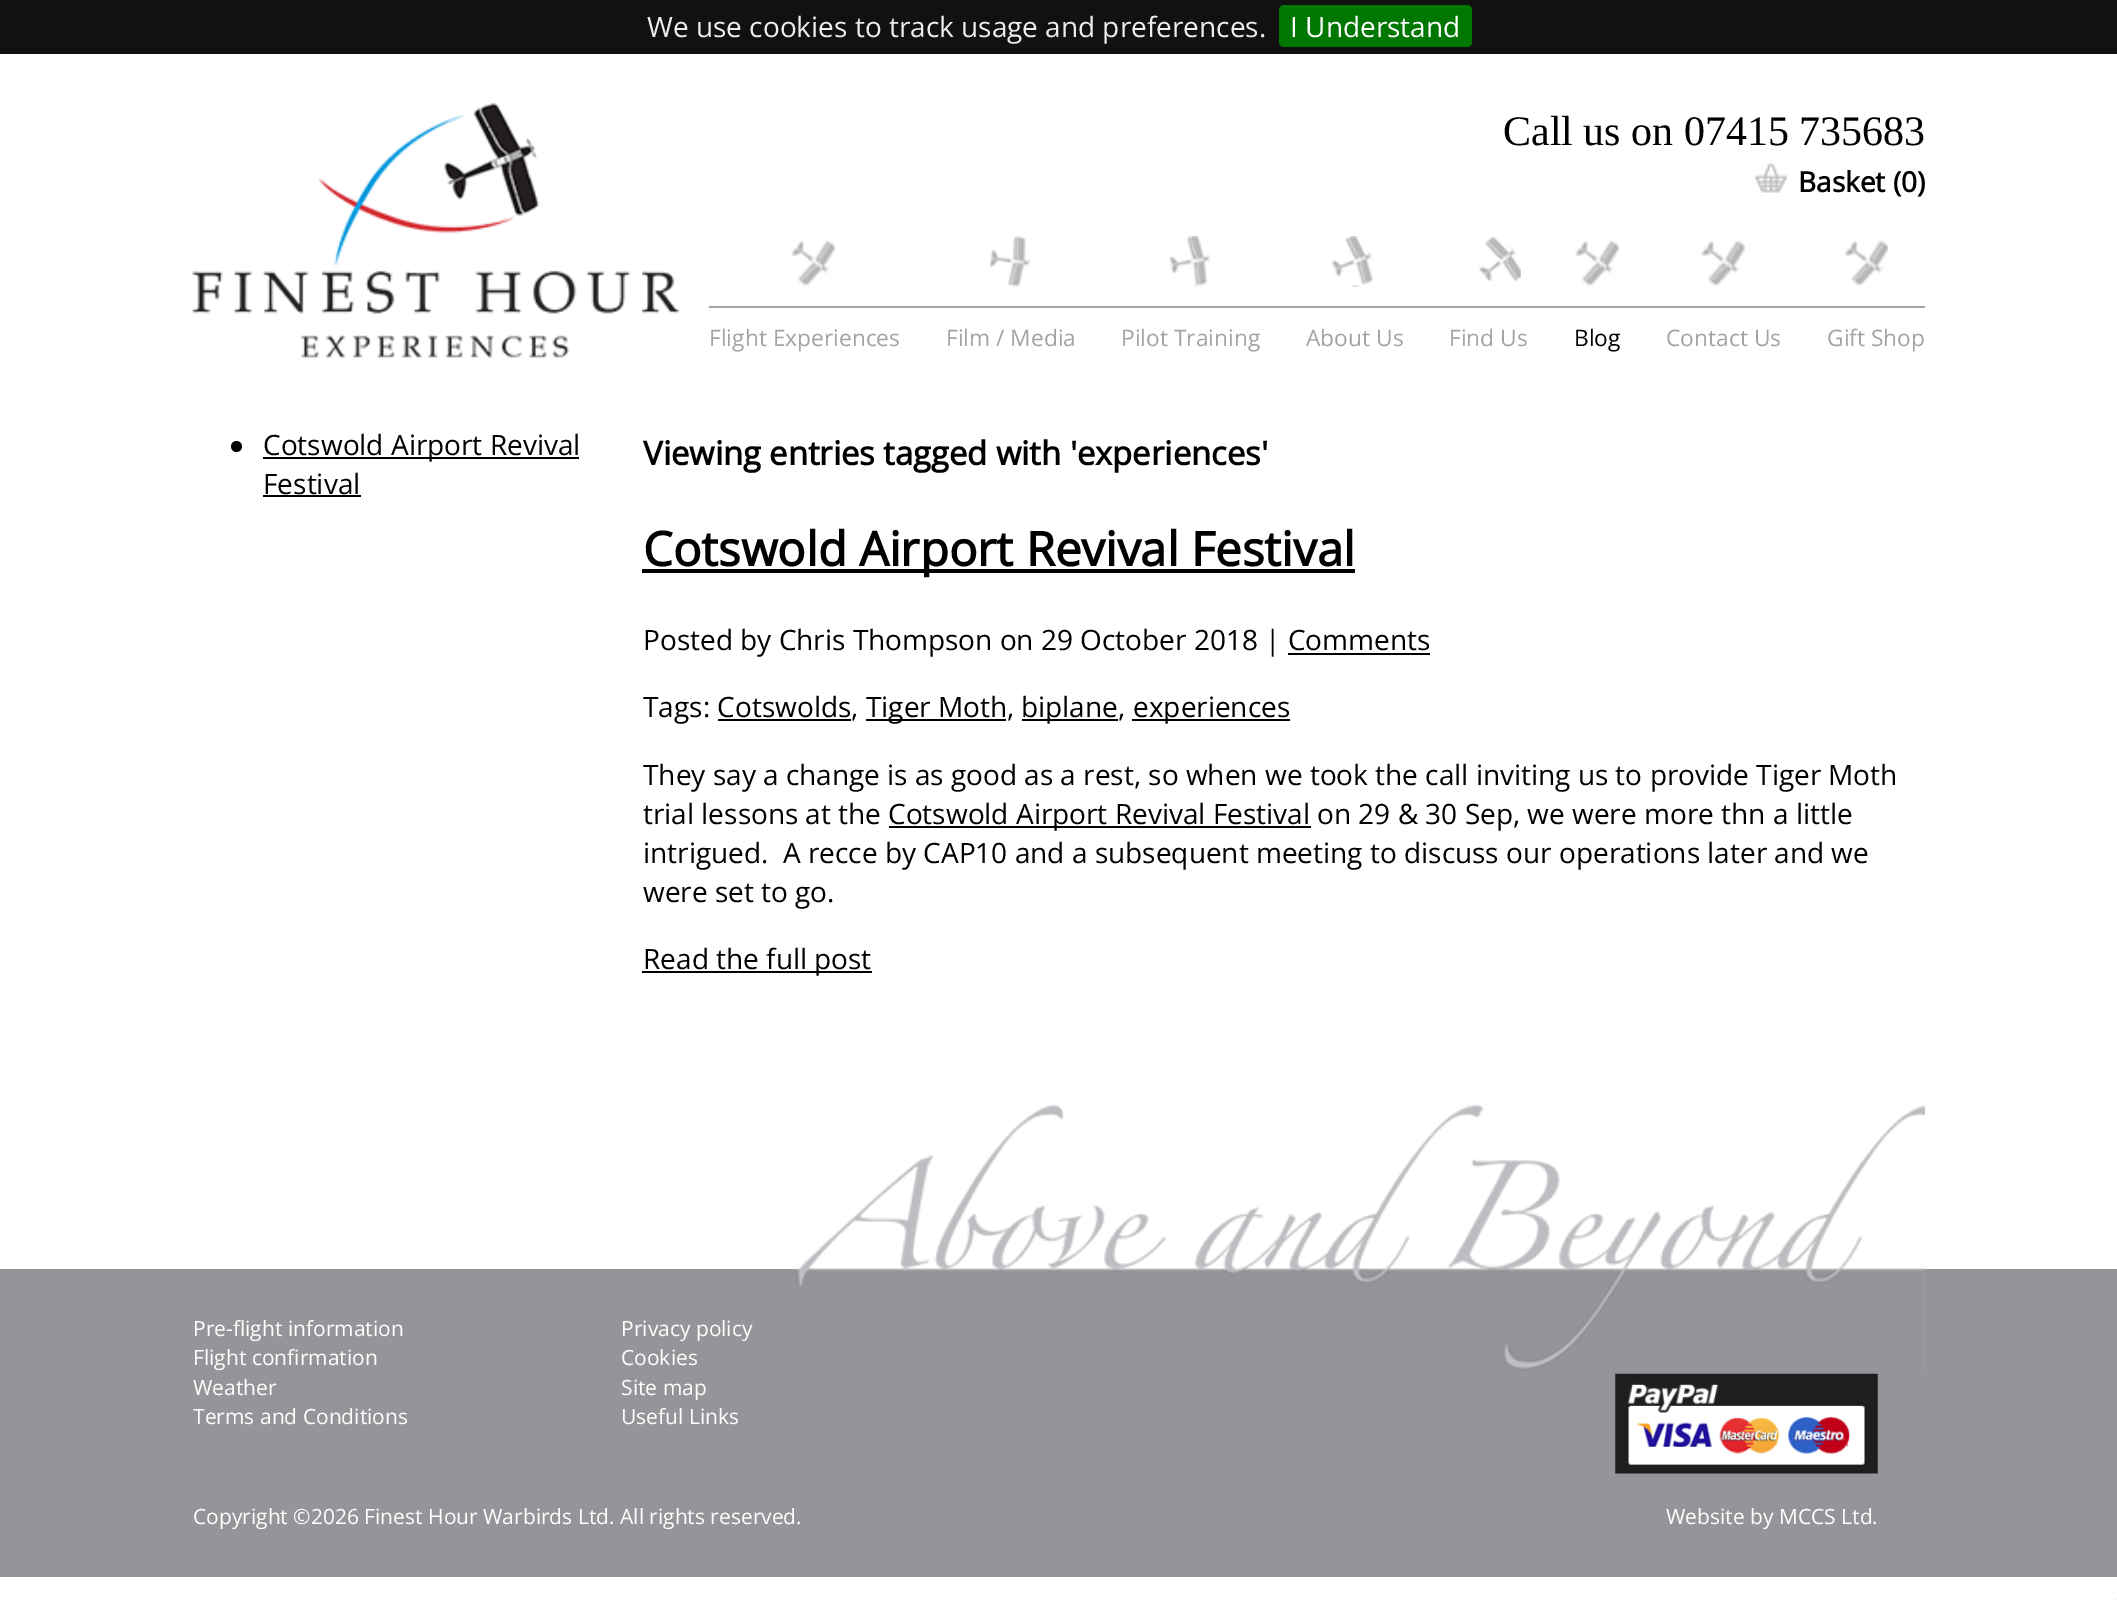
%!PS
<< /PageSize [2117 1600] >> setpagedevice
/f/fill load def
/C { dup -16 bitshift 255 div exch dup -8 bitshift 255 and 255 div exch 255 and 255 div setrgbcolor } def
/F { [ exch dup neg 0 0 3 -1 roll 0 0 ] selectfont } def
/T { moveto show } def
/R { rectfill } def
/O { newpath 0 360 arc closepath } def
/Q { 5 dict begin { /r /h /w /y /x } { exch def } forall
  x r add y moveto x w add y 2 copy h add r arct x w add y h add x 1 index r arct
  x y h add x y r arct x y 2 copy exch w add exch r arct closepath end } def
/I { 5 dict begin { /h /w /y /x /name } { exch def } forall
  gsave x y translate w h scale
  w h 8 [w 0 0 h 0 0] name (r) file false 3 colorimage grestore end } def
0 1600 translate 1 -1 scale
4 setmiterlimit
16#FFFFFF C
0 0 2117 1600 R
16#111111 C
0 0 2117 54 R
/OpenSans-Regular 28 F
16#EEEEEE C
(We use cookies to track usage and preferences.) 647 37 T
16#007700 C
1279 5 193 42 5 Q f
16#FFFFFF C
(I Understand) 1290 37 T
(1.rgb) 192 103 488 256 I
/LiberationSerif-Regular 42 F
16#000000 C
(Call us on 07415 735683) 1503 145 T
(2.rgb) 1754 162 34 31 I
/OpenSans-Bold 28 F
(Basket \(0\)) 1798 192 T
16#A4A3A3 C
709 306 1216 2 R
(3.rgb) 791 240 44 46 I
/OpenSans-Regular 22.75 F
(Flight Experiences) 709 346 T
(4.rgb) 989 236 42 51 I
(Film / Media) 946 346 T
(5.rgb) 1169 236 42 51 I
(Pilot Training) 1121 346 T
(6.rgb) 1331 236 42 51 I
(About Us) 1306 346 T
(7.rgb) 1478 236 43 51 I
(Find Us) 1449 346 T
(8.rgb) 1575 240 44 46 I
16#000000 C
(Blog) 1574 346 T
(3.rgb) 1701 240 44 46 I
16#A4A3A3 C
(Contact Us) 1666 346 T
(9.rgb) 1844 240 45 46 I
(Gift Shop) 1827 346 T
16#000000 C
236.5 446.5 5.5 O f
263 457 316 2 R
/OpenSans-Regular 28 F
(Cotswold Airport Revival) 263 455 T
(Festival) 263 494 T
263 495 98 2 R
/OpenSans-Bold 32.75 F
(Viewing entries tagged with 'experiences') 643 465 T
642 569 713 4 R
/OpenSans-Bold 47.25 F
(Cotswold Airport Revival Festival) 643 566 T
/OpenSans-Regular 28 F
(Posted by Chris Thompson on 29 October 2018 | Comments) 643 650 T
1288 653 142 2 R
(Tags: Cotswolds,) 643 717 T
866 719 140 2 R
(Tiger Moth,) 866 717 T
1022 719 96 2 R
(biplane,) 1021 717 T
1132 719 158 2 R
(experiences) 1133 717 T
718 719 133 2 R
(They say a change is as good as a rest, so when we took the call inviting us to provide Tiger Moth) 643 785 T
(trial lessons at the) 643 824 T
889 826 422 2 R
(Cotswold Airport Revival Festival on 29 & 30 Sep, we were more thn a little) 888 824 T
(intrigued.  A recce by CAP10 and a subsequent meeting to discuss our operations later and we) 643 863 T
(were set to go.) 643 902 T
642 971 230 2 R
(Read the full post) 643 969 T
16#939598 C
0 1269 2117 308 R
/OpenSans-Regular 21 F
16#FFFFFF C
(Pre-flight information) 193 1336 T
(Flight confirmation) 193 1365 T
(Weather) 193 1395 T
(Terms and Conditions) 193 1424 T
(Privacy policy) 621 1336 T
(Cookies) 621 1365 T
(Site map) 621 1395 T
(Useful Links) 621 1424 T
(10.rgb) 796 1104 1129 268 I
(11.rgb) 1615 1373 263 101 I
(Copyright ©2026 Finest Hour Warbirds Ltd. All rights reserved.) 193 1524 T
(Website by MCCS Ltd.) 1666 1524 T
16#F5F5F5 C
2114 1598 3 2 R
showpage
